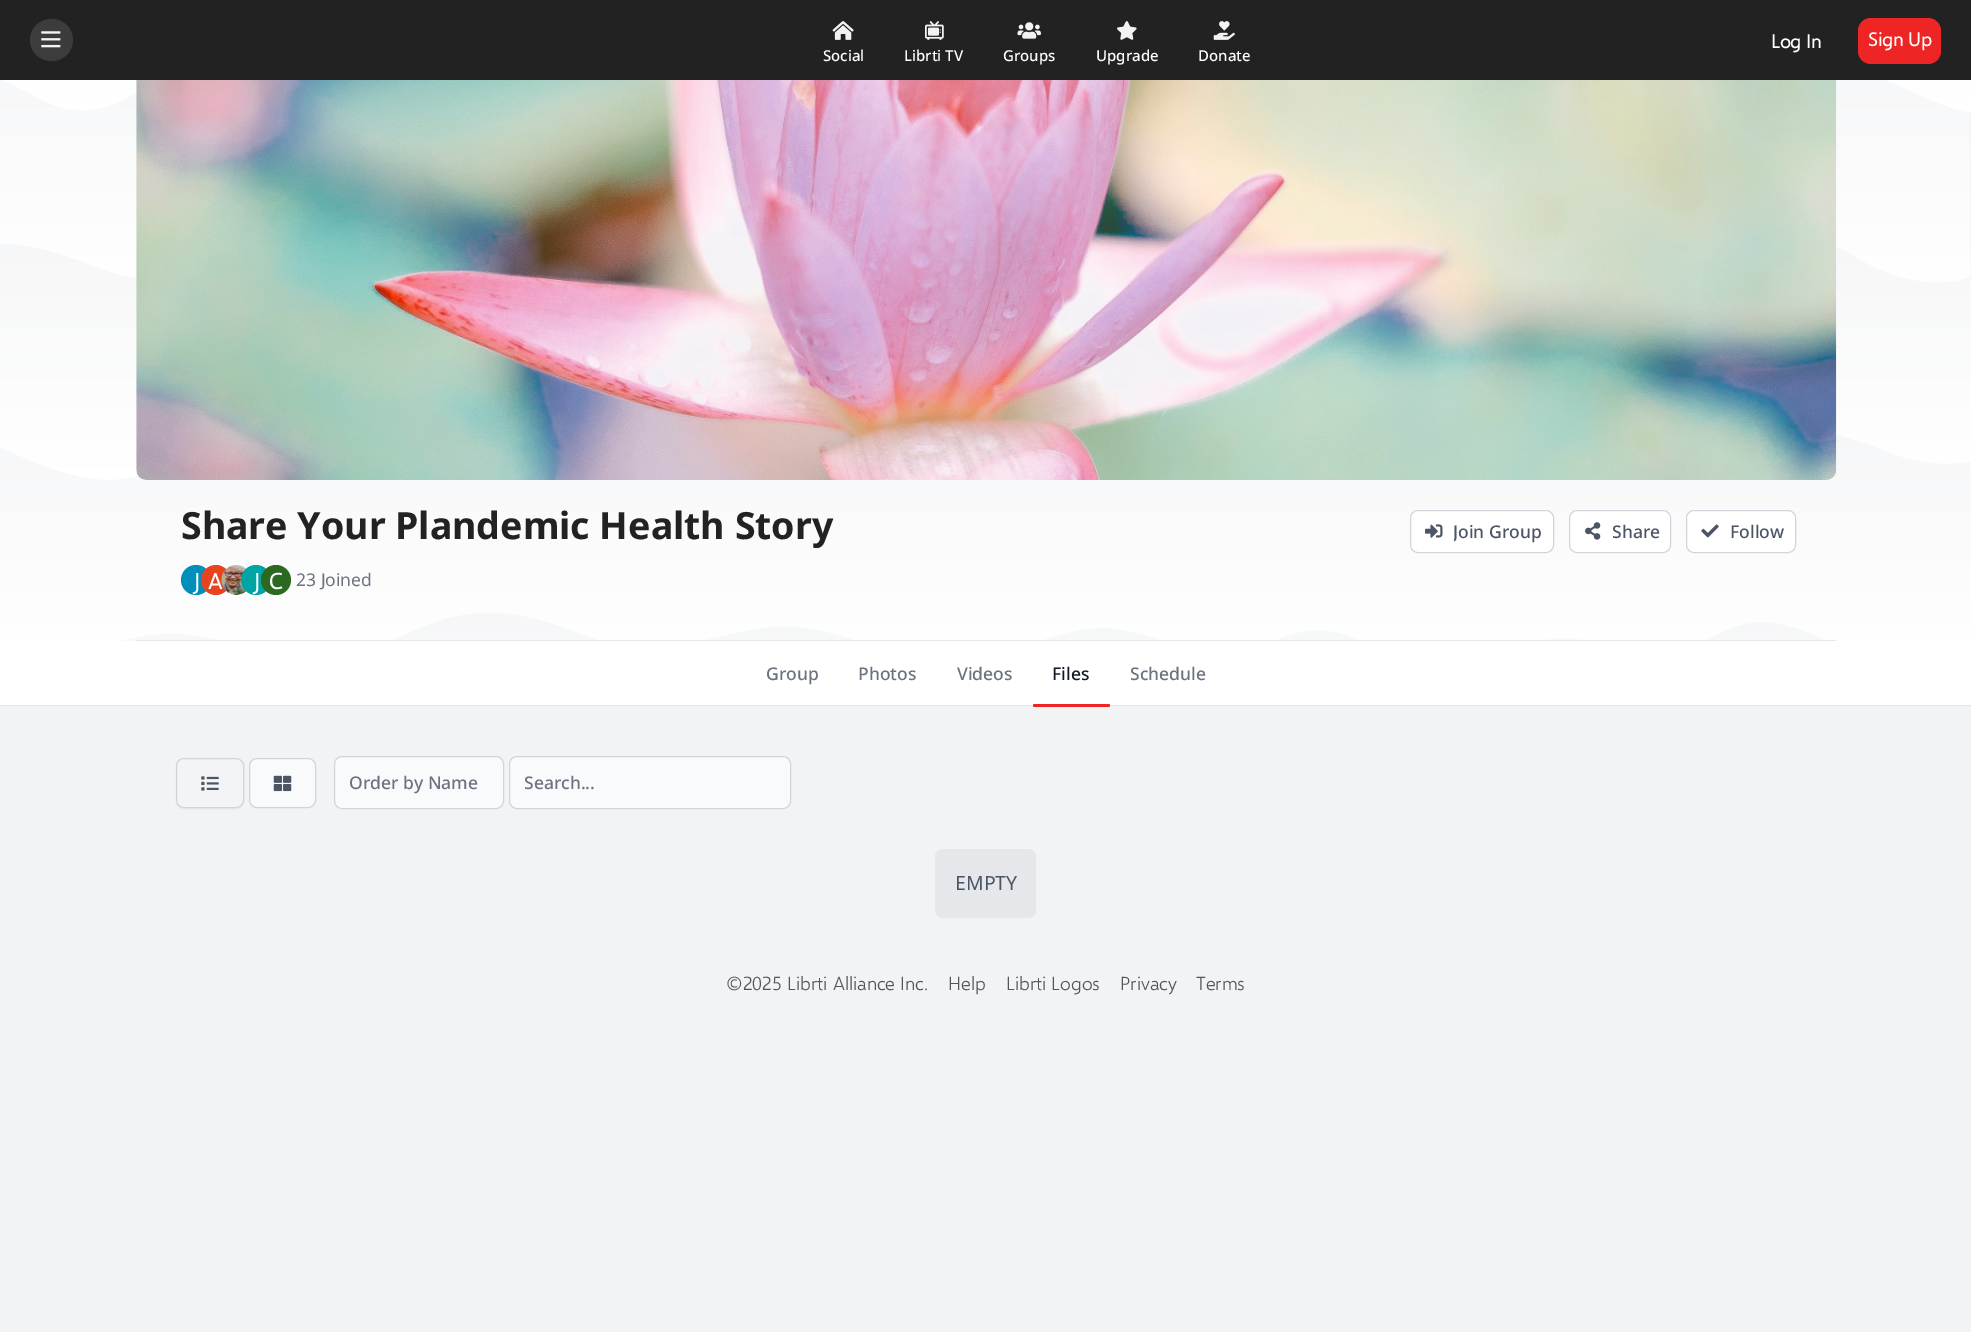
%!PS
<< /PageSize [1971 1332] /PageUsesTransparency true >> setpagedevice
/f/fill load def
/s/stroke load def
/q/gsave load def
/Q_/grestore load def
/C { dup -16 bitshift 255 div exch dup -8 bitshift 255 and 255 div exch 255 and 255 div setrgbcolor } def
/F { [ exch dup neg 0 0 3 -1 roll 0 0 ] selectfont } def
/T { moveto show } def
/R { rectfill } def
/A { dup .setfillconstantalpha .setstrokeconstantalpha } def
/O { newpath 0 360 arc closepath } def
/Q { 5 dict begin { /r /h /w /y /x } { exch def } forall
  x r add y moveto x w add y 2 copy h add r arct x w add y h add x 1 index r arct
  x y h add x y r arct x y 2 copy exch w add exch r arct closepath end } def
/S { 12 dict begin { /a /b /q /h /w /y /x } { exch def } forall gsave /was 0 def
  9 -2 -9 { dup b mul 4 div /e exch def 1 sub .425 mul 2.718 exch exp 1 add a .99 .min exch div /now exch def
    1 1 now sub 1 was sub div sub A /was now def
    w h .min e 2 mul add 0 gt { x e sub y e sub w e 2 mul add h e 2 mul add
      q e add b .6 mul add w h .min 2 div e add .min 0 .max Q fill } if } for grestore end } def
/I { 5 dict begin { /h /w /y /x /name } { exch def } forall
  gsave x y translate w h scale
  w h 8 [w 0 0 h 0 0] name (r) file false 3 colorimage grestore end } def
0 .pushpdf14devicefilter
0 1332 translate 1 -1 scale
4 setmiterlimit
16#F2F3F5 C
0 0 1971 1332 R
16#222222 C
0 0 1971 80 R
16#3C3C3C C
30 19 43 42 21 Q f
(1.rgb) 41 31 20 17 I
/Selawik-Bold 18.75 F
16#FFFFFF C
(Log In) 1771 48 T
16#ED2525 C
1858 18 83 46 13 Q f
16#FFFFFF C
(Sign Up) 1868 46 T
(2.rgb) 832 21 22 19 I
/NotoSans-Medium 15 F
(Social) 823 61 T
(3.rgb) 925 21 19 19 I
(Librti TV) 904 61 T
(4.rgb) 1017 22 24 17 I
(Groups) 1003 61 T
(5.rgb) 1117 21 20 19 I
(Upgrade) 1096 61 T
(6.rgb) 1213 21 22 19 I
(Donate) 1198 61 T
(7.rgb) 0 80 1971 561 I
(8.rgb) 136 80 1701 400 I
/NotoSans-Bold 37.5 F
16#222222 C
(Share Your Plandemic Health Story) 181 539 T
16#008FB8 C
196 580 15 O f
/Selawik-Bold 22 F
16#FFFFFF C
(J) 192 589 T
16#E7441E C
216 580 15 O f
16#FFFFFF C
(A) 208 589 T
(9.rgb) 221 565 26 30 I
16#00A4A5 C
256 580 15 O f
16#FFFFFF C
(J) 252 589 T
16#2B6820 C
276 580 15 O f
16#FFFFFF C
(C) 269 589 T
/NotoSans-Regular 17.5 F
16#6B7280 C
(23 Joined) 296 586 T
16#FFFFFF C
1410.5 510.5 143 42 7.5 Q q f Q_
16#D1D5DB C
s
(10.rgb) 1425 524 18 14 I
q
1454 519 89 25 rectclip
/NotoSans-Medium 17.5 F
16#4B5563 C
(Join Group) 1453 538 T
Q_
16#FFFFFF C
1569.5 510.5 101 42 7.5 Q q f Q_
16#D1D5DB C
s
(11.rgb) 1585 522 16 18 I
/NotoSans-Medium 17.5 F
16#4B5563 C
(Share) 1612 538 T
16#FFFFFF C
1686.5 510.5 109 42 7.5 Q q f Q_
16#D1D5DB C
s
(12.rgb) 1701 524 18 14 I
16#4B5563 C
(Follow) 1730 538 T
16#E5E7EB C
136 640 1700 1 R
16#FFFFFF C
0 641 1971 64 R
16#E5E7EB C
0 705 1971 1 R
16#6B7280 C
(Group) 766 680 T
(Photos) 858 680 T
(Videos) 957 680 T
16#111827 C
(Files) 1052 680 T
16#ED2525 C
1033 704 77 3 1.5 Q f
16#6B7280 C
(Schedule) 1130 680 T
16#000000 C
176 759 68 50 8 1 .05 S
16#F3F4F6 C
176.5 758.5 67 49 7.5 Q q f Q_
16#D1D5DB C
s
(13.rgb) 201 776 18 15 I
16#F9FAFB C
249.5 758.5 66 49 7.5 Q q f Q_
16#D1D5DB C
s
(14.rgb) 273 775 19 17 I
16#F9FAFB C
334.5 756.5 169 52 7.5 Q q f Q_
16#D1D5DB C
s
16#6B7280 C
(Order by Name) 349 789 T
16#F9FAFB C
509.5 756.5 281 52 7.5 Q q f Q_
16#D1D5DB C
s
16#6B7280 C
(Search...) 524 789 T
16#E5E7EB C
935 849 101 69 8 Q f
/NotoSans-Regular 19.5 F
16#4B5563 C
(EMPTY) 955 890 T
/Selawik-Light 18.75 F
16#555555 C
(©2025 Librti Alliance Inc.) 726 990 T
(Help) 948 990 T
(Librti Logos) 1006 990 T
(Privacy) 1120 990 T
(Terms) 1196 990 T
.poppdf14devicefilter showpage
